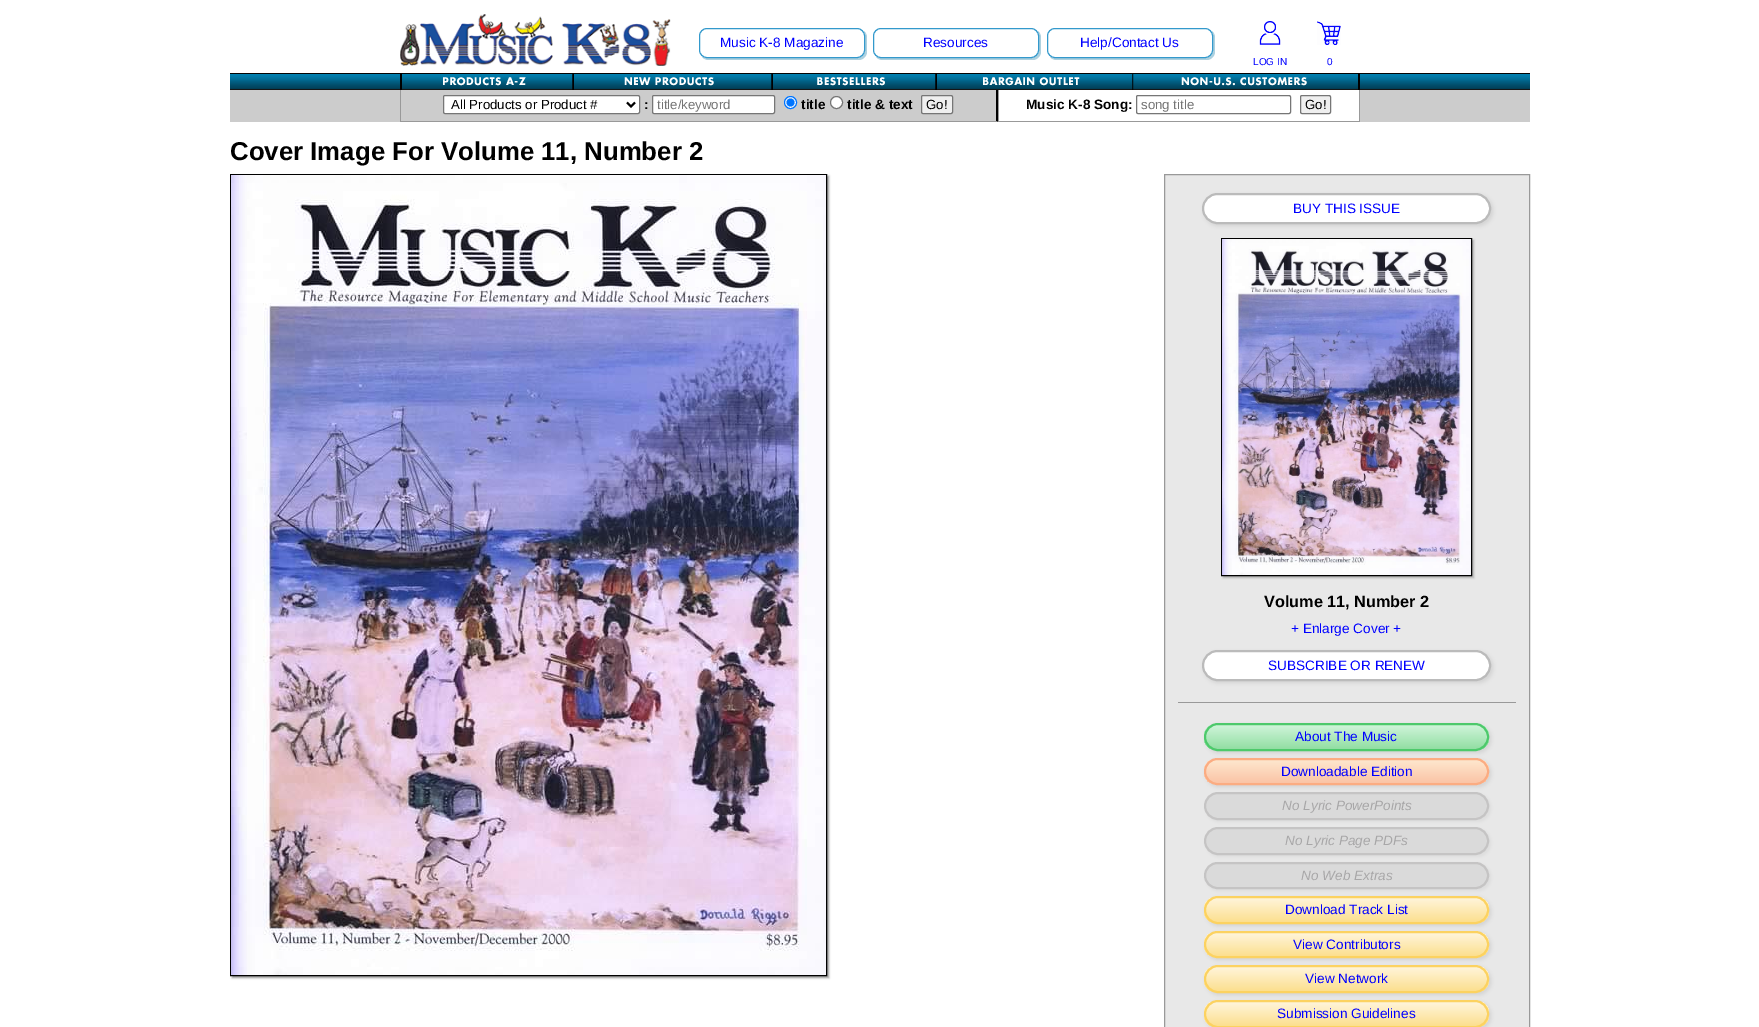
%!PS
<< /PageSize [1759 1027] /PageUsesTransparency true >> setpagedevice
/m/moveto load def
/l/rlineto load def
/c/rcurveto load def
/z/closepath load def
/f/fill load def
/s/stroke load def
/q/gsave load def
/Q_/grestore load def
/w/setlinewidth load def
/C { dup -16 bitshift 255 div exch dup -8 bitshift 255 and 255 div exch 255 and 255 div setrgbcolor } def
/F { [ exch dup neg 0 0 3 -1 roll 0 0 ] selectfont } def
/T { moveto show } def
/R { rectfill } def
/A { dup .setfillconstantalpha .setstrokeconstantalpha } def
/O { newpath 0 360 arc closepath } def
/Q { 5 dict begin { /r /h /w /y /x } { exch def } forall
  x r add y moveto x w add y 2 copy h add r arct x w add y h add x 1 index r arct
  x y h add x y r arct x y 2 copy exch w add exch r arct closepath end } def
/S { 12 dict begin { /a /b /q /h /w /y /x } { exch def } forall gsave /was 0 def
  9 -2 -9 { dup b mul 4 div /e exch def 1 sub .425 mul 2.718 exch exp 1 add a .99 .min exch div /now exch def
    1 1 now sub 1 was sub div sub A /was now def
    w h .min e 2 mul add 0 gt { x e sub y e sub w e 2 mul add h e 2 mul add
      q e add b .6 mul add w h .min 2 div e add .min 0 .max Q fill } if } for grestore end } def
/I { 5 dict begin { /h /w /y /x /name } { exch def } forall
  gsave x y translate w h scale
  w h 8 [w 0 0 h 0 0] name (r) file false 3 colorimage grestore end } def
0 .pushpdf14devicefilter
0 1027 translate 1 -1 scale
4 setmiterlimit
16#FFFFFF C
0 0 1759 1027 R
(1.rgb) 400 14 271 52 I
16#AED1DF C
702 57 m 2 2 4 3 7 3 c 150 0 l 4 0 8 -4 8 -8 c 0 -14 l 0 -3 -1 -5 -3 -7 c 0 2 1 3 1 5 c 0 14 l 0 4 -4 8 -8 8 c -150 0 l -2 0 -3 -1 -5 -1 c z f
16#FFFFFF C
699.5 28.5 165 29 7.5 Q q f Q_
16#3399CC C
s
/LiberationSans-Regular 13.6 F
16#0000FF C
(Music K-8 Magazine) 720 47 T
16#AED1DF C
876 57 m 2 2 4 3 7 3 c 150 0 l 4 0 8 -4 8 -8 c 0 -14 l 0 -3 -1 -5 -3 -7 c 0 2 1 3 1 5 c 0 14 l 0 4 -4 8 -8 8 c -150 0 l -2 0 -3 -1 -5 -1 c z f
16#FFFFFF C
873.5 28.5 165 29 7.5 Q q f Q_
16#3399CC C
s
16#0000FF C
(Resources) 923 47 T
16#AED1DF C
1050 57 m 2 2 4 3 7 3 c 150 0 l 4 0 8 -4 8 -8 c 0 -14 l 0 -3 -1 -5 -3 -7 c 0 2 1 3 1 5 c 0 14 l 0 4 -4 8 -8 8 c -150 0 l -2 0 -3 -1 -5 -1 c z f
16#FFFFFF C
1047.5 28.5 165 29 7.5 Q q f Q_
16#3399CC C
s
16#0000FF C
(Help/Contact Us) 1080 47 T
(2.rgb) 1259 21 22 24 I
/LiberationSans-Regular 10 F
(LOG IN) 1253 65 T
(3.rgb) 1317 21 24 24 I
(0) 1327 65 T
(4.rgb) 230 73 1300 17 I
16#000000 C
1358 73 2 17 R
400 73 2 17 R
(5.rgb) 443 73 131 17 I
(6.rgb) 624 73 149 17 I
(7.rgb) 817 73 120 17 I
(8.rgb) 983 74 150 16 I
(9.rgb) 1133 74 174 16 I
16#CCCCCC C
230 90 1300 32 R
16#000000 C
998 90 m 0 32 l -2 -1 l 0 -31 l z f
16#999999 C
998 122 m -598 0 l 1 -1 l 595 0 l z f
400 90 1 32 R
16#FFFFFF C
443.5 95.5 196 18 1.5 Q q f Q_
16#767676 C
s
16#000000 C
2 w
627 102.5 m 4 4 l 4 -4 l s
/LiberationSans-Regular 13.25 F
(All Products or Product #) 451 109 T
/LiberationSans-Bold 13.6 F
(:) 644 109 T
16#FFFFFF C
652.5 95.5 122 18 1.5 Q q f Q_
16#767676 C
1 w
s
/LiberationSans-Regular 13.25 F
16#757575 C
(title/keyword) 657 109 T
16#FFFFFF C
790.5 102.5 6 O q f Q_
16#0075FF C
s
790.5 102.5 4 O f
/LiberationSans-Bold 13.6 F
16#000000 C
(title) 801 109 T
16#FFFFFF C
836.5 102.5 6 O q f Q_
16#767676 C
s
16#000000 C
(title & text) 847 109 T
16#EFEFEF C
921.5 95.5 31 18 1.5 Q q f Q_
16#767676 C
s
/LiberationSans-Regular 13.25 F
16#000000 C
(Go!) 926 109 T
16#FFFFFF C
999 90 360 31 R
16#999999 C
1359 90 1 32 R
998 121 362 1 R
998 90 1 32 R
/LiberationSans-Bold 13.6 F
16#000000 C
(Music K-8 Song:) 1026 109 T
16#767676 C
1136.5 95.5 154 18 1.5 Q s
/LiberationSans-Regular 13.25 F
16#757575 C
(song title) 1141 109 T
16#EFEFEF C
1300.5 95.5 30 18 1.5 Q q f Q_
16#767676 C
s
16#000000 C
(Go!) 1305 109 T
/LiberationSans-Bold 25.8 F
(Cover Image For Volume 11, Number 2) 230 160 T
16#999999 C
232 176 597 802 0 1 1 S
16#000000 C
230.5 174.5 596 801 rectstroke
(10.rgb) 231 175 595 800 I
16#E8E8E8 C
1164.5 174.5 m 365 0 l 0 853 l -365 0 l z q f Q_
16#999999 C
s
16#D4D4D4 C
1204 195 289 31 15.5 2 1 S
16#FFFFFF C
1203 194 287 29 14.5 Q q f Q_
16#BBBBBB C
2 w
s
/LiberationSans-Regular 13.6 F
16#0000FF C
(BUY THIS ISSUE) 1293 213 T
16#B1B1B1 C
1223 240 251 338 0 1 1 S
16#000000 C
1 w
1221.5 238.5 250 337 rectstroke
(11.rgb) 1222 239 249 336 I
/LiberationSans-Bold 16.25 F
(Volume 11, Number 2) 1264 607 T
/LiberationSans-Regular 13.6 F
16#0000FF C
(+ Enlarge Cover +) 1291 633 T
16#D4D4D4 C
1204 652 289 31 15.5 2 1 S
16#FFFFFF C
1203 651 287 29 14.5 Q q f Q_
16#BBBBBB C
2 w
s
16#0000FF C
(SUBSCRIBE OR RENEW) 1268 670 T
16#999999 C
1178 702 338 1 R
16#D4D4D4 C
1206 725 285 28 14 2 1 S
q
1204 723 285 28 14 Q clip newpath
q 1204 725 m 285 0 l 0 24 l -285 0 l z clip newpath
<< /ShadingType 2 /ColorSpace /DeviceRGB /Coords [1347 725 1347 749] /Extend [true true] /Function << /FunctionType 2 /Domain [0 1] /C0 [.816 .961 .855] /C1 [.573 .871 .639] /N 1 >> >> shfill Q_
Q_
16#4DC96B C
1205 724 283 26 13 Q s
16#0000FF C
(About The Music) 1295 741 T
16#D4D4D4 C
1206 760 285 27 13.5 2 1 S
q
1204 758 285 27 13.5 Q clip newpath
q 1204 760 m 285 0 l 0 23 l -285 0 l z clip newpath
<< /ShadingType 2 /ColorSpace /DeviceRGB /Coords [1347 760 1347 783] /Extend [true true] /Function << /FunctionType 2 /Domain [0 1] /C0 [.996 .906 .808] /C1 [.984 .769 .651] /N 1 >> >> shfill Q_
Q_
16#FBAC82 C
1205 759 283 25 12.5 Q s
16#0000FF C
(Downloadable Edition) 1281 776 T
16#DCDCDC C
1206 794 285 28 14 2 1 S
16#DADADA C
1205 793 283 26 13 Q q f Q_
16#C5C4C4 C
s
/LiberationSans-Italic 13.6 F
16#A8A7A8 C
(No Lyric PowerPoints) 1282 810 T
16#DCDCDC C
1206 829 285 28 14 2 1 S
16#DADADA C
1205 828 283 26 13 Q q f Q_
16#C5C4C4 C
s
16#A8A7A8 C
(No Lyric Page PDFs) 1285 845 T
16#D4D4D4 C
1206 898 285 28 14 2 1 S
q
1204 896 285 28 14 Q clip newpath
q 1204 898 m 285 0 l 0 24 l -285 0 l z clip newpath
<< /ShadingType 2 /ColorSpace /DeviceRGB /Coords [1347 898 1347 922] /Extend [true true] /Function << /FunctionType 2 /Domain [0 1] /C0 [1 .961 .859] /C1 [.988 .875 .561] /N 1 >> >> shfill Q_
Q_
16#FCD260 C
1205 897 283 26 13 Q s
16#DCDCDC C
1206 864 285 27 13.5 2 1 S
16#DADADA C
1205 863 283 25 12.5 Q q f Q_
16#C5C4C4 C
s
16#A8A7A8 C
(No Web Extras) 1301 880 T
/LiberationSans-Regular 13.6 F
16#0000FF C
(Download Track List) 1285 914 T
16#D4D4D4 C
1206 933 285 27 13.5 2 1 S
q
1204 931 285 27 13.5 Q clip newpath
q 1204 933 m 285 0 l 0 23 l -285 0 l z clip newpath
<< /ShadingType 2 /ColorSpace /DeviceRGB /Coords [1347 933 1347 956] /Extend [true true] /Function << /FunctionType 2 /Domain [0 1] /C0 [1 .961 .859] /C1 [.988 .875 .561] /N 1 >> >> shfill Q_
Q_
16#FCD260 C
1205 932 283 25 12.5 Q s
16#0000FF C
(View Contributors) 1293 949 T
16#D4D4D4 C
1206 967 285 28 14 2 1 S
q
1204 965 285 28 14 Q clip newpath
q 1204 967 m 285 0 l 0 24 l -285 0 l z clip newpath
<< /ShadingType 2 /ColorSpace /DeviceRGB /Coords [1347 967 1347 991] /Extend [true true] /Function << /FunctionType 2 /Domain [0 1] /C0 [1 .961 .859] /C1 [.988 .875 .561] /N 1 >> >> shfill Q_
Q_
16#FCD260 C
1205 966 283 26 13 Q s
16#0000FF C
(View Network) 1305 983 T
16#D4D4D4 C
1206 1002 285 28 14 2 1 S
q
1204 1000 285 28 14 Q clip newpath
q 1204 1002 m 285 0 l 0 24 l -285 0 l z clip newpath
<< /ShadingType 2 /ColorSpace /DeviceRGB /Coords [1347 1002 1347 1026] /Extend [true true] /Function << /FunctionType 2 /Domain [0 1] /C0 [1 .961 .859] /C1 [.988 .875 .561] /N 1 >> >> shfill Q_
Q_
16#FCD260 C
1205 1001 283 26 13 Q s
16#0000FF C
(Submission Guidelines) 1277 1018 T
.poppdf14devicefilter showpage
